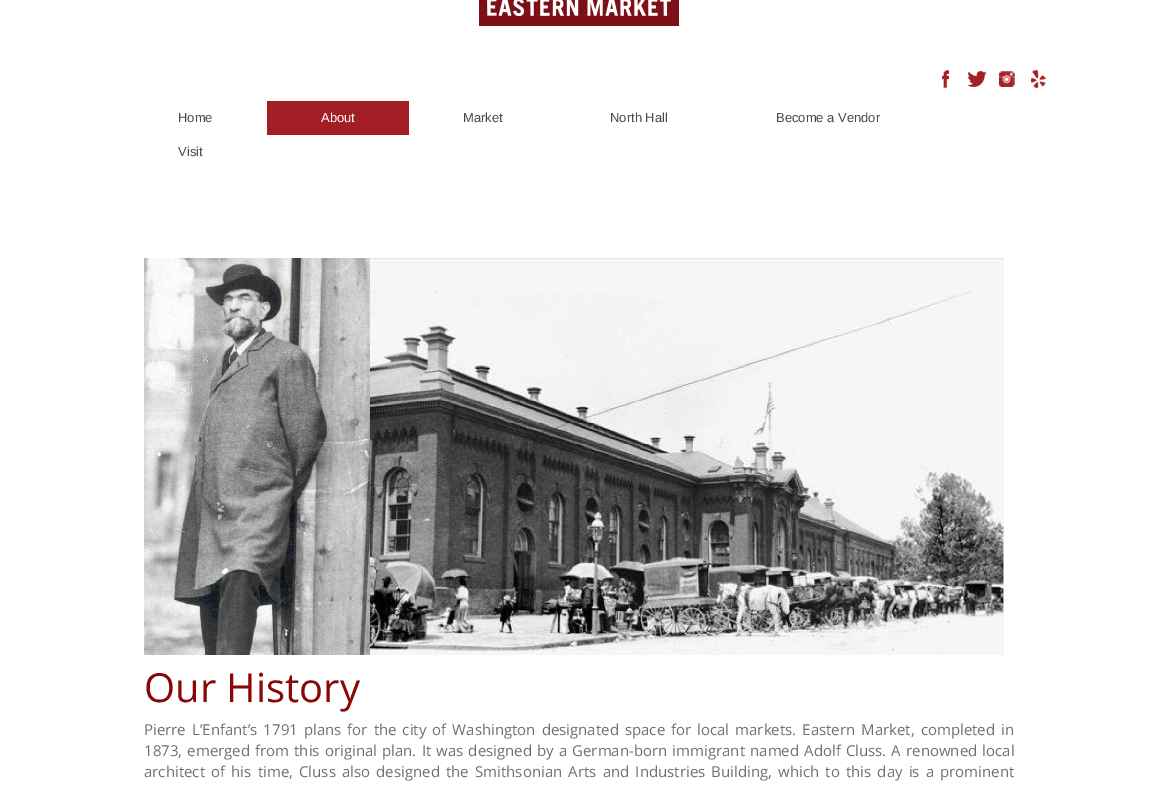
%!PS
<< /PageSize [1158 785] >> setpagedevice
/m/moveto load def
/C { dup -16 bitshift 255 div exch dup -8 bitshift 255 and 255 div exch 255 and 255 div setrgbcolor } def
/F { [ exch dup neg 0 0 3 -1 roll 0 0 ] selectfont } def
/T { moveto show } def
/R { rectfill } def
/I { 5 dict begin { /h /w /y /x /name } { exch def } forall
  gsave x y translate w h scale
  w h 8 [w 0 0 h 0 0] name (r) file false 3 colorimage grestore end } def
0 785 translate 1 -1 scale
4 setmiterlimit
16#FFFFFF C
0 0 1158 785 R
(1.rgb) 479 0 200 26 I
(2.rgb) 942 70 7 18 I
(3.rgb) 967 71 20 16 I
(4.rgb) 999 71 16 16 I
(5.rgb) 1031 70 15 18 I
/LiberationSans-Regular 13 F
16#4A4A4A C
(Home) 178 122 T
16#A21E24 C
267 101 142 34 R
16#FFFFFF C
(About) 321 122 T
16#4A4A4A C
(Market) 463 122 T
(North Hall) 610 122 T
(Become a Vendor) 776 122 T
(Visit) 178 156 T
(6.rgb) 144 258 860 397 I
/OpenSans-Regular 40 F
16#880707 C
(Our History) 144 702 T
/OpenSans-Regular 15 F
16#717070 C
144 735 m 2.1 0 32 (Pierre L’Enfant’s 1791 plans for the city of Washington designated space for local markets. Eastern Market, completed in) widthshow
144 756 m 1.2 0 32 (1873, emerged from this original plan. It was designed by a German-born immigrant named Adolf Cluss. A renowned local) widthshow
144 777 m 2.25 0 32 (architect of his time, Cluss also designed the Smithsonian Arts and Industries Building, which to this day is a prominent) widthshow
showpage
